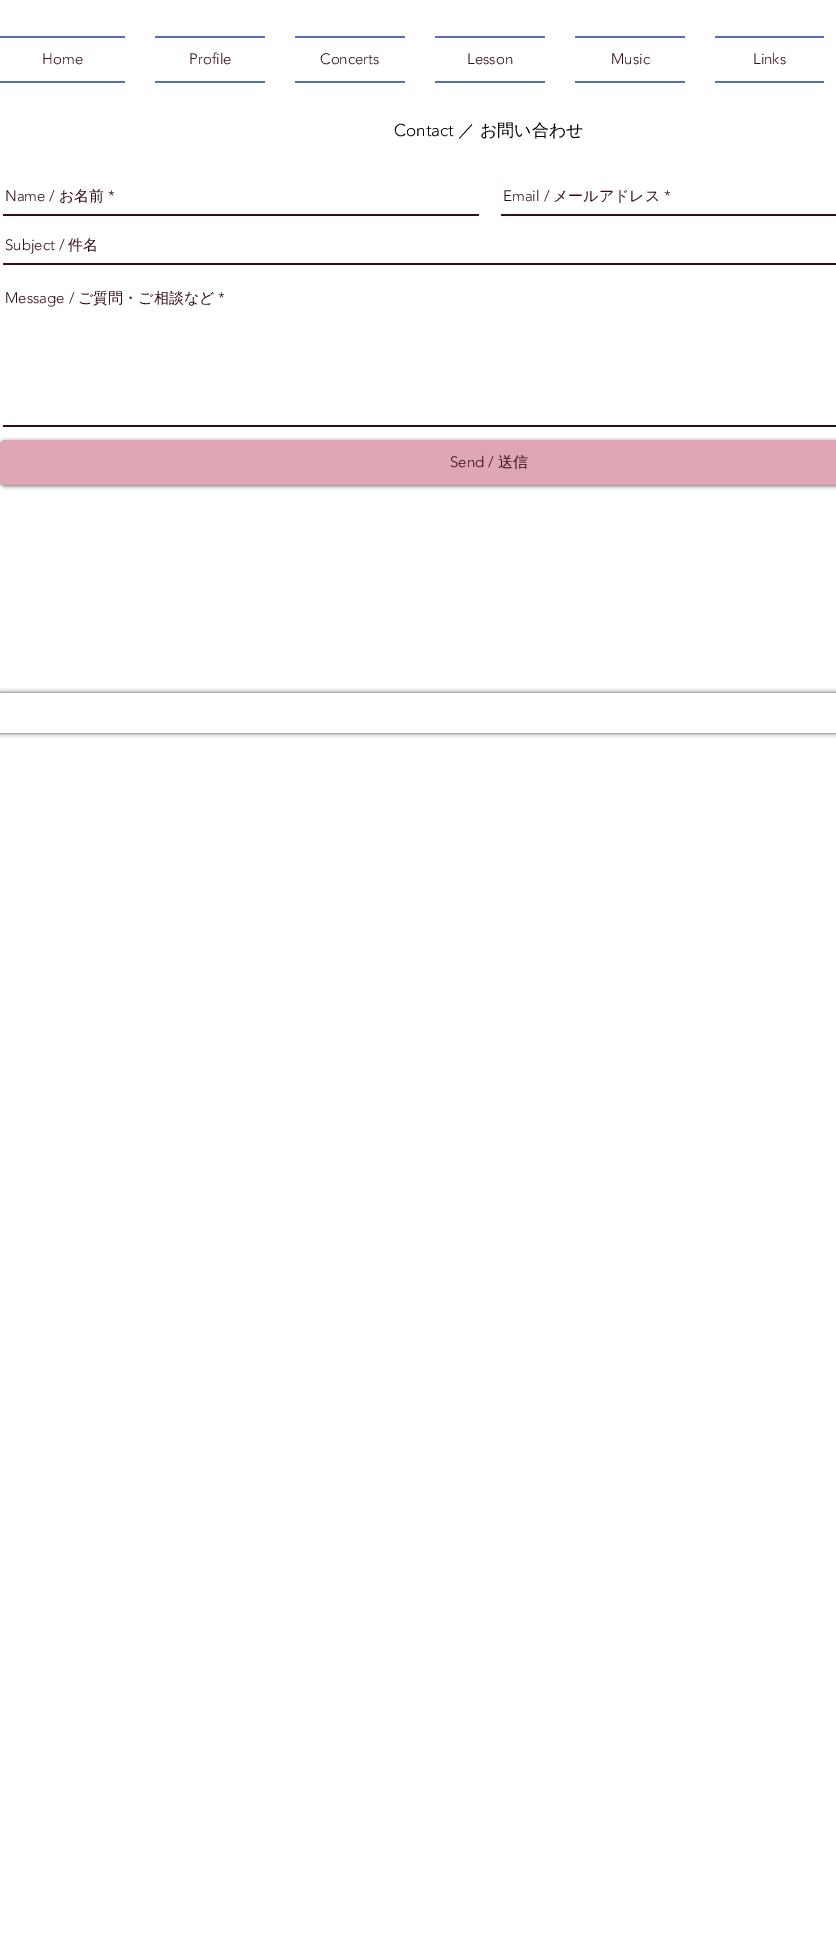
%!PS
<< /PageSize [836 1941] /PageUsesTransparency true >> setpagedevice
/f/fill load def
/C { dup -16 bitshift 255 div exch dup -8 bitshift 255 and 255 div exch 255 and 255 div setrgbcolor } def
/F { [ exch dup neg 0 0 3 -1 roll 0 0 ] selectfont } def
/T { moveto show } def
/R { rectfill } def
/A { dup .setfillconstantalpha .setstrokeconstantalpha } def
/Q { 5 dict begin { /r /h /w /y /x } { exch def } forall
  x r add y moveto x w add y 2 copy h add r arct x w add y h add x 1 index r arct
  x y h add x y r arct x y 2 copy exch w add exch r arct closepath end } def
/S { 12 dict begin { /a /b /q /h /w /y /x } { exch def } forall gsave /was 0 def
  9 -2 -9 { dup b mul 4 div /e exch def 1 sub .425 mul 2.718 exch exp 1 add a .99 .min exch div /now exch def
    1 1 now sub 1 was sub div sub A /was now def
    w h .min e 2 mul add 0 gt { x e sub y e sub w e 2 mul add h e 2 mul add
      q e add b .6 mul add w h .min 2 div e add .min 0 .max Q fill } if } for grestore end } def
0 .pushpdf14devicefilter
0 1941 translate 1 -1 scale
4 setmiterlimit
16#FFFFFF C
0 0 836 1941 R
16#566FB8 C
0 36 125 2 R
0 81 125 2 R
/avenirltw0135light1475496-Light 15 F
16#350D18 C
(Home) 42 64 T
16#566FB8 C
155 36 110 2 R
155 81 110 2 R
16#350D18 C
(Profile) 189 64 T
16#566FB8 C
295 36 110 2 R
295 81 110 2 R
16#350D18 C
(Concerts) 320 64 T
16#566FB8 C
435 36 110 2 R
435 81 110 2 R
16#350D18 C
(Lesson) 467 64 T
16#566FB8 C
575 36 110 2 R
575 81 110 2 R
16#350D18 C
(Music) 611 64 T
16#566FB8 C
715 36 109 2 R
715 81 109 2 R
16#350D18 C
(Links) 753 64 T
/avenirltw0135light1475496-Light 17 F
16#000000 C
(Contact) 394 136 T
/WenQuanYiZenHei-Medium 17 F
(／ お問い合わせ) 458 136 T
16#350D18 C
3 214 476 2 R
/avenirltw0135light1475496-Light 15 F
(Name /) 5 201 T
/WenQuanYiZenHei-Medium 15 F
(お名前) 59 201 T
/avenirltw0135light1475496-Light 15 F
(*) 108 201 T
501 214 335 2 R
(Email /) 503 201 T
/WenQuanYiZenHei-Medium 15 F
(メールアドレス) 553 201 T
/avenirltw0135light1475496-Light 15 F
(*) 664 201 T
3 263 833 2 R
(Subject /) 5 250 T
/WenQuanYiZenHei-Medium 15 F
(件名) 68 250 T
3 425 833 2 R
/avenirltw0135light1475496-Light 15 F
(Message /) 5 303 T
/WenQuanYiZenHei-Medium 15 F
(ご質問・ご相談など) 78 303 T
/avenirltw0135light1475496-Light 15 F
(*) 218 303 T
16#000000 C
0 441 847 45 5 2 .6 S
16#DFA7B6 C
0 440 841 45 5 Q f
16#350D18 C
(Send /) 450 467 T
/WenQuanYiZenHei-Medium 15 F
(送信) 498 467 T
16#000000 C
0 693 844 40 0 2.5 .7 S
16#FFFFFF C
0 693 836 40 R
.poppdf14devicefilter showpage
